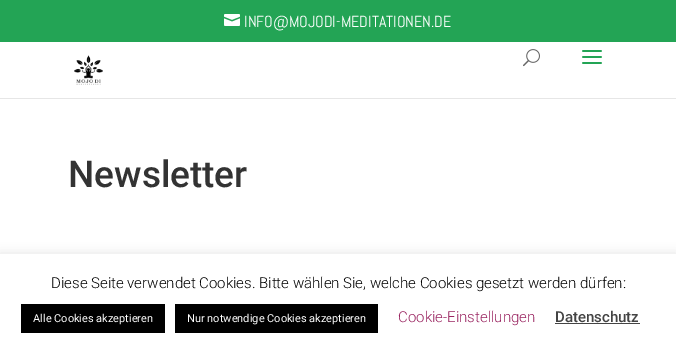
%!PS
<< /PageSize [676 350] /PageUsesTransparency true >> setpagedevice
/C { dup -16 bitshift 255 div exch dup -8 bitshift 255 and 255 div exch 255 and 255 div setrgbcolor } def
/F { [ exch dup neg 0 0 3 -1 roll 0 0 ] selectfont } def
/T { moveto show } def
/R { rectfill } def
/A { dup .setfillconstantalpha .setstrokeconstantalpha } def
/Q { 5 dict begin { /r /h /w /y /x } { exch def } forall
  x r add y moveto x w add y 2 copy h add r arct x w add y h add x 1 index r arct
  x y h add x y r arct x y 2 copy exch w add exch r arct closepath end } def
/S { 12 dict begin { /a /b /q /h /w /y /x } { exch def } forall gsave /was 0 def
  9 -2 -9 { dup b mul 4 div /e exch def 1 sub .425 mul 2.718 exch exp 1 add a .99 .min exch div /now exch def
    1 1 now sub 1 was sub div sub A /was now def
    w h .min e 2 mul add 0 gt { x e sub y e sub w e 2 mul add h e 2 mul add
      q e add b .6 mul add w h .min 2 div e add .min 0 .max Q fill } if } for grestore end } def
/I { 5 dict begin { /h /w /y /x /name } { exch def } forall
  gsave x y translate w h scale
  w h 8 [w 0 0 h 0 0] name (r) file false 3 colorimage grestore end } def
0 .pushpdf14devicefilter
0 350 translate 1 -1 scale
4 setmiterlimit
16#FFFFFF C
0 0 676 350 R
16#23A455 C
0 0 676 42 R
(1.rgb) 224 14 16 12 I
/Abel-Regular 16 F
16#FFFFFF C
(INFO@MOJODI-MEDITATIONEN.DE) 244 27 T
16#E6E6E6 C
0 98 676 1 R
(2.rgb) 74 55 29 30 I
(3.rgb) 523 49 17 18 I
(4.rgb) 582 50 20 14 I
/Roboto-Medium 37 F
16#333333 C
(Newsletter) 68 187 T
16#ACABAB C
0 253 676 96 0 5 .3 S
16#FFFFFF C
0 254 676 96 R
/Roboto-Light 15 F
16#000000 C
(Diese Seite verwendet Cookies. Bitte wählen Sie, welche Cookies gesetzt werden dürfen:) 51 288 T
21 304 144 29 R
/Roboto-Regular 11 F
16#FFFFFF C
(Alle Cookies akzeptieren) 33 322 T
16#000000 C
175 304 203 29 R
16#FFFFFF C
(Nur notwendige Cookies akzeptieren) 187 322 T
/Roboto-Light 15 F
16#992460 C
(Cookie-Einstellungen) 398 322 T
/Roboto-Medium 15 F
16#444444 C
(Datenschutz) 555 322 T
555 323 85 1 R
.poppdf14devicefilter showpage
